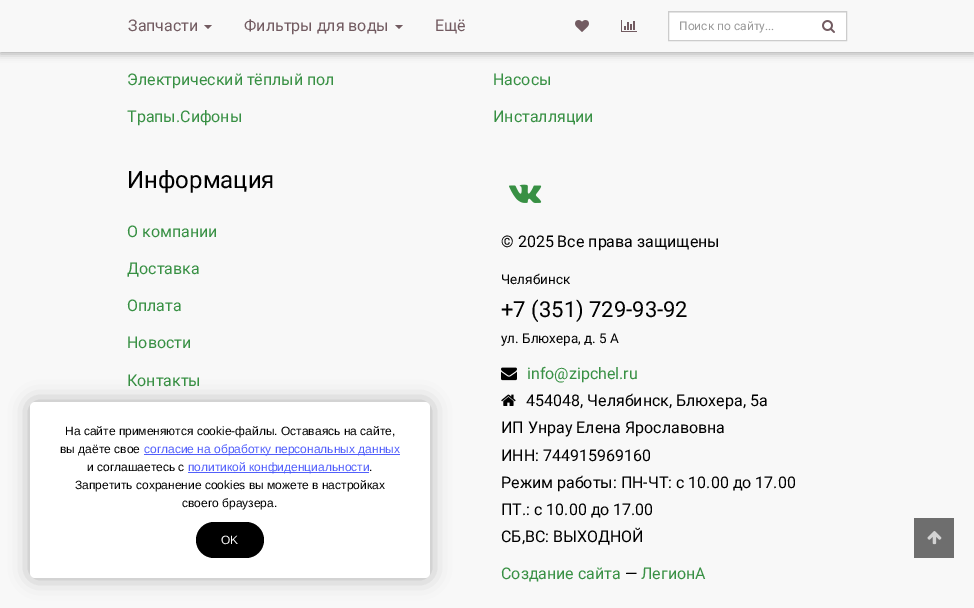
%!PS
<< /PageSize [974 608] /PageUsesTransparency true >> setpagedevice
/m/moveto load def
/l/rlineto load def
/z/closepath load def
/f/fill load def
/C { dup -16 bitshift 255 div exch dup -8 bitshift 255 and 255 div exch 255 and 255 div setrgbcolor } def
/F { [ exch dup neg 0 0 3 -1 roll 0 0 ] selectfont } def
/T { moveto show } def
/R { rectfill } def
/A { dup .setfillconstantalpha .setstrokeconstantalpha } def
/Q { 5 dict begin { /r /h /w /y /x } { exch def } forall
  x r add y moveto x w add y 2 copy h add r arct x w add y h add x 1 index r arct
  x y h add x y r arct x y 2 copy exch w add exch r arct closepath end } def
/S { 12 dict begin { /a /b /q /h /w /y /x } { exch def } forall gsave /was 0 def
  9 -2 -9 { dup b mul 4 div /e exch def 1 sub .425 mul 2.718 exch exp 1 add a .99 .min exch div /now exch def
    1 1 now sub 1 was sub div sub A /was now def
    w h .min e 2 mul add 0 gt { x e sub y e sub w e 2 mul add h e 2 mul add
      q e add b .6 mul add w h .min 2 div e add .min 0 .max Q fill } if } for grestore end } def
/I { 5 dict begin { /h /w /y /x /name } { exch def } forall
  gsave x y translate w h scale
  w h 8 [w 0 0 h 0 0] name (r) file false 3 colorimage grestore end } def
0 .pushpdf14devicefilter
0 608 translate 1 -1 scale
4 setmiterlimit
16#F8F8F8 C
0 0 974 608 R
16#000000 C
0 2 974 52 0 4 .3 S
16#F8F8F8 C
0 0 974 52 R
/Roboto-Regular 16 F
16#725B61 C
(Запчасти) 128 31 T
204 25 m 8 0 l -4 4 l z f
(Фильтры для воды) 244 31 T
395 25 m 8 0 l -4 4 l z f
(Ещё) 435 31 T
(1.rgb) 575 20 14 12 I
(2.rgb) 621 20 16 12 I
16#FFFFFF C
669 13 177 27 R
16#ECECEC C
669 12 177 1 R
16#CCCCCC C
668.5 11.5 178 29 rectstroke
/Roboto-Regular 12 F
16#999999 C
(Поиск по сайту...) 679 30 T
(3.rgb) 822 20 13 13 I
/Roboto-Regular 16 F
16#389044 C
(Электрический тёплый пол) 127 85 T
(Насосы) 493 85 T
(Трапы.Сифоны) 127 122 T
(Инсталляции) 493 122 T
/Roboto-Regular 24 F
16#000000 C
(Информация) 127 188 T
/Roboto-Regular 16 F
16#389044 C
(О компании) 127 237 T
(Доставка) 127 274 T
(Оплата) 127 311 T
(Новости) 127 348 T
(Контакты) 127 386 T
(4.rgb) 509 184 33 19 I
16#000000 C
(© 2025 Все права защищены) 501 247 T
/Roboto-Regular 13.5 F
(Челябинск) 501 284 T
/Roboto-Regular 22 F
(+7 \(351\) 729-93-92) 501 317 T
/Roboto-Regular 13.5 F
(ул. Блюхера, д. 5 A) 501 343 T
(5.rgb) 501 367 16 14 I
/Roboto-Regular 16 F
16#389044 C
(info@zipchel.ru) 527 379 T
(6.rgb) 501 394 15 12 I
16#000000 C
(454048, Челябинск, Блюхера, 5а) 526 406 T
(ИП Унрау Елена Ярославовна) 501 433 T
(ИНН: 744915969160) 501 461 T
(Режим работы: ПН-ЧТ: с 10.00 до 17.00) 501 488 T
(ПТ.: с 10.00 до 17.00) 501 515 T
(СБ,ВС: ВЫХОДНОЙ) 501 542 T
16#389044 C
(Создание сайта) 501 579 T
16#000000 C
(—) 625 579 T
16#389044 C
(ЛегионА) 641 579 T
16#000000 C
30 402 400 176 5 10 .3 S
16#FFFFFF C
30 402 400 176 5 Q f
/LiberationSans-Regular 12 F
16#000000 C
(На сайте применяются cookie-файлы. Оставаясь на сайте,) 65 435 T
(вы даёте свое) 60 453 T
16#525FFB C
144 454 256 1 R
(согласие на обработку персональных данных) 144 453 T
16#000000 C
(и соглашаетесь с) 87 471 T
16#525FFB C
188 472 181 1 R
(политикой конфиденциальности) 188 471 T
16#000000 C
(.) 369 471 T
(Запретить сохранение cookies вы можете в настройках) 75 489 T
(своего браузера.) 182 507 T
196 522 68 36 18 Q f
16#FFFFFF C
(OK) 221 544 T
16#6E6E6E C
914 518 40 40 R
(7.rgb) 927 531 15 14 I
.poppdf14devicefilter showpage
